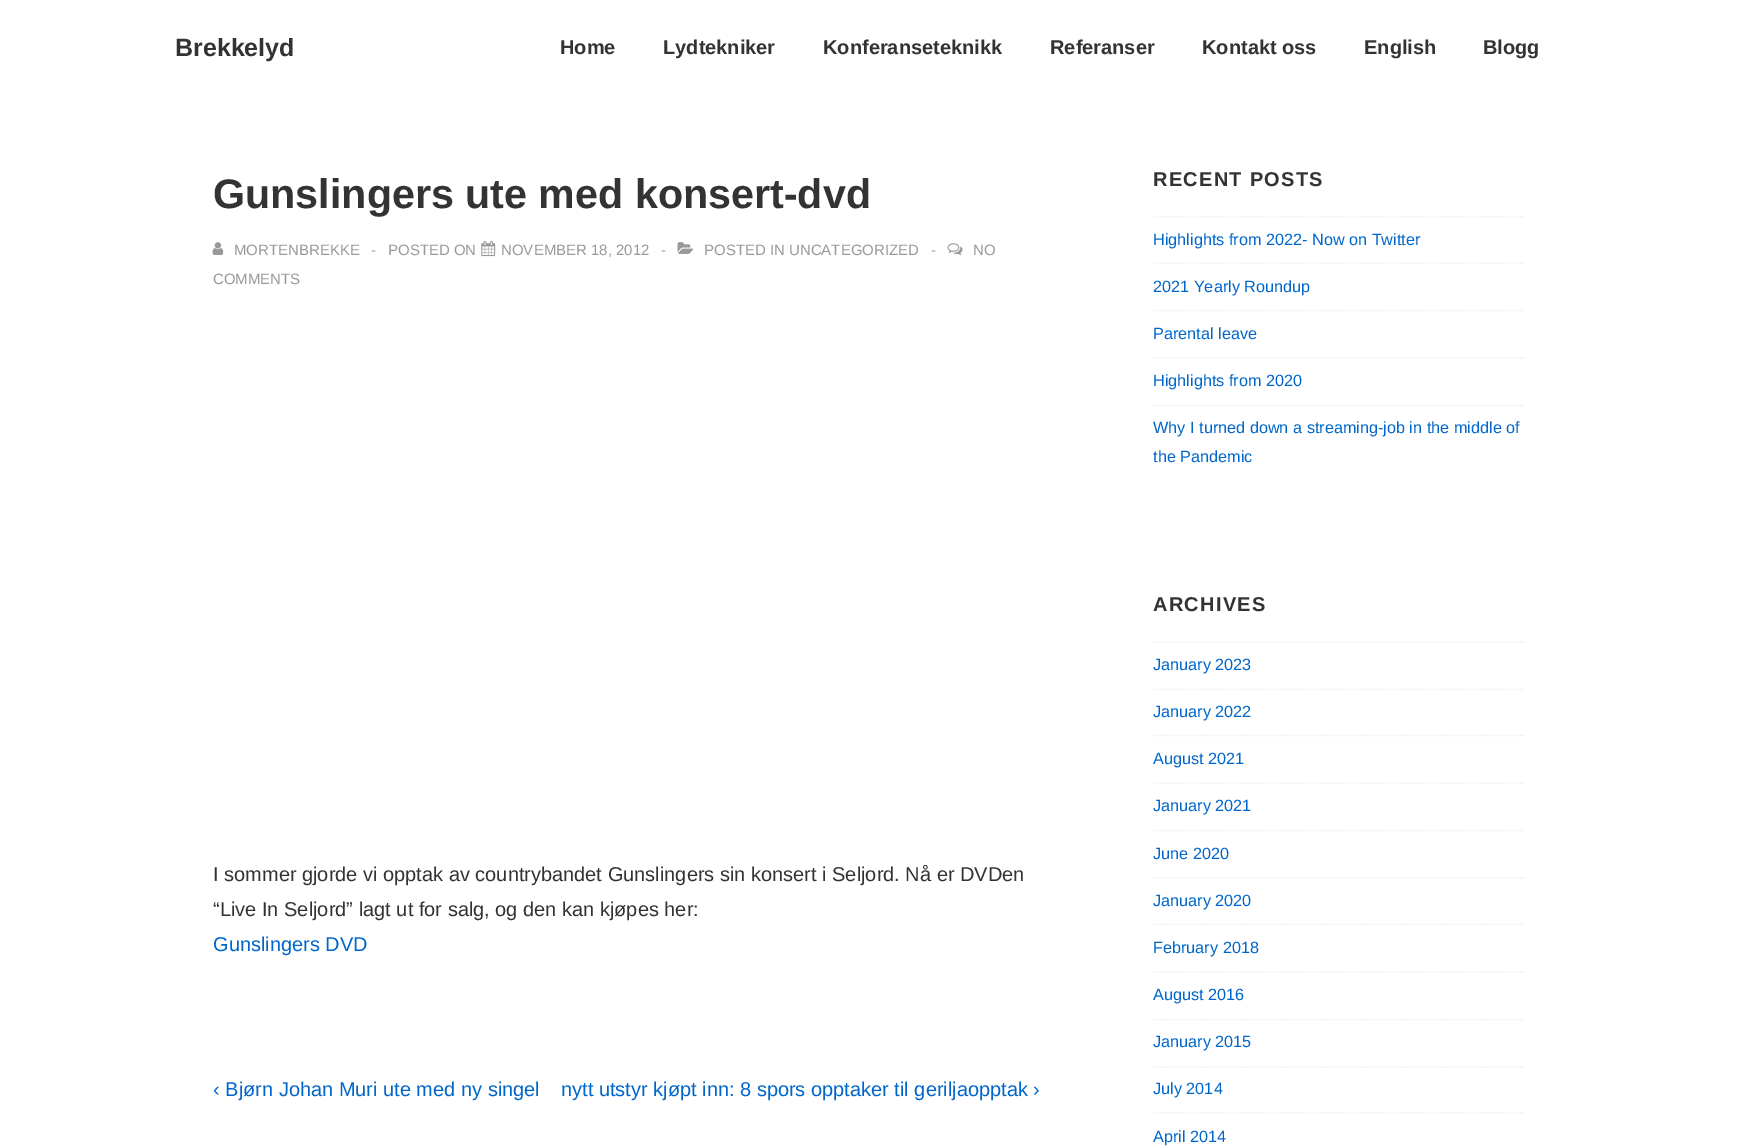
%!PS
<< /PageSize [1737 1148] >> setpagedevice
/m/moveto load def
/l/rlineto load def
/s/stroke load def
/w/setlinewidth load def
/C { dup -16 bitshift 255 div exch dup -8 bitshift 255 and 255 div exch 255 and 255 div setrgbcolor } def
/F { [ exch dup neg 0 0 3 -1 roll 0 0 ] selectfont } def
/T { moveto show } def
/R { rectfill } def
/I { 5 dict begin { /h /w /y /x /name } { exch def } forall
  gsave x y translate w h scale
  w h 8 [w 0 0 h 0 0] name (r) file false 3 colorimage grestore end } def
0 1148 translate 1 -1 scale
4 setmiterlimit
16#FFFFFF C
0 0 1737 1148 R
/LiberationSans-Bold 25 F
16#333333 C
(Brekkelyd) 175 56 T
/LiberationSans-Bold 20 F
(Home) 560 54 T
(Lydtekniker) 663 54 T
(Konferanseteknikk) 823 54 T
(Referanser) 1050 54 T
(Kontakt oss) 1202 54 T
(English) 1364 54 T
(Blogg) 1483 54 T
/LiberationSans-Bold 41.25 F
(Gunslingers ute med konsert-dvd) 213 208 T
(1.rgb) 212 242 12 13 I
/LiberationSans-Regular 15 F
16#999999 C
(MORTENBREKKE) 234 255 T
(-) 371 255 T
(POSTED ON) 388 255 T
(2.rgb) 481 241 15 16 I
(NOVEMBER 18, 2012) 501 255 T
(-) 661 255 T
(3.rgb) 677 242 17 12 I
(POSTED IN UNCATEGORIZED) 704 255 T
(-) 931 255 T
(4.rgb) 947 243 16 12 I
(NO) 973 255 T
(COMMENTS) 213 284 T
/LiberationSans-Regular 20 F
16#333333 C
(I sommer gjorde vi opptak av countrybandet Gunslingers sin konsert i Seljord. Nå er DVDen) 213 881 T
(“Live In Seljord” lagt ut for salg, og den kan kjøpes her:) 213 916 T
16#0066CC C
(Gunslingers DVD) 213 951 T
(‹ Bjørn Johan Muri ute med ny singel) 213 1096 T
(nytt utstyr kjøpt inn: 8 spors opptaker til geriljaopptak ›) 561 1096 T
/LiberationSans-Bold 20 F
16#333333 C
1153 186 m 1.25 0 (RECENT POSTS) ashow
16#EEEEEE C
1.2 w
[1.25 1.25] 0 setdash
1152.5 217 m 372.5 0 l s
/LiberationSans-Regular 16.25 F
16#0066CC C
(Highlights from 2022- Now on Twitter) 1153 245 T
16#EEEEEE C
1152.5 263 m 372.5 0 l s
16#0066CC C
(2021 Yearly Roundup) 1153 292 T
16#EEEEEE C
1152.5 310.5 m 372.5 0 l s
16#0066CC C
(Parental leave) 1153 339 T
16#EEEEEE C
1152.5 358 m 372.5 0 l s
16#0066CC C
(Highlights from 2020) 1153 386 T
16#EEEEEE C
1152.5 405.5 m 372.5 0 l s
16#0066CC C
(Why I turned down a streaming-job in the middle of) 1153 433 T
(the Pandemic) 1153 462 T
/LiberationSans-Bold 20 F
16#333333 C
1153 611 m 1.25 0 (ARCHIVES) ashow
16#EEEEEE C
1152.5 642 m 372.5 0 l s
/LiberationSans-Regular 16.25 F
16#0066CC C
(January 2023) 1153 670 T
16#EEEEEE C
1152.5 689.5 m 372.5 0 l s
16#0066CC C
(January 2022) 1153 717 T
16#EEEEEE C
1152.5 735.5 m 372.5 0 l s
16#0066CC C
(August 2021) 1153 764 T
16#EEEEEE C
1152.5 783 m 372.5 0 l s
16#0066CC C
(January 2021) 1153 811 T
16#EEEEEE C
1152.5 830.5 m 372.5 0 l s
16#0066CC C
(June 2020) 1153 859 T
16#EEEEEE C
1152.5 878 m 372.5 0 l s
16#0066CC C
(January 2020) 1153 906 T
16#EEEEEE C
1152.5 924.5 m 372.5 0 l s
16#0066CC C
(February 2018) 1153 953 T
16#EEEEEE C
1152.5 972 m 372.5 0 l s
16#0066CC C
(August 2016) 1153 1000 T
16#EEEEEE C
1152.5 1019.5 m 372.5 0 l s
16#0066CC C
(January 2015) 1153 1047 T
16#EEEEEE C
1152.5 1067 m 372.5 0 l s
16#0066CC C
(July 2014) 1153 1094 T
16#EEEEEE C
1152.5 1113 m 372.5 0 l s
16#0066CC C
(April 2014) 1153 1142 T
showpage
